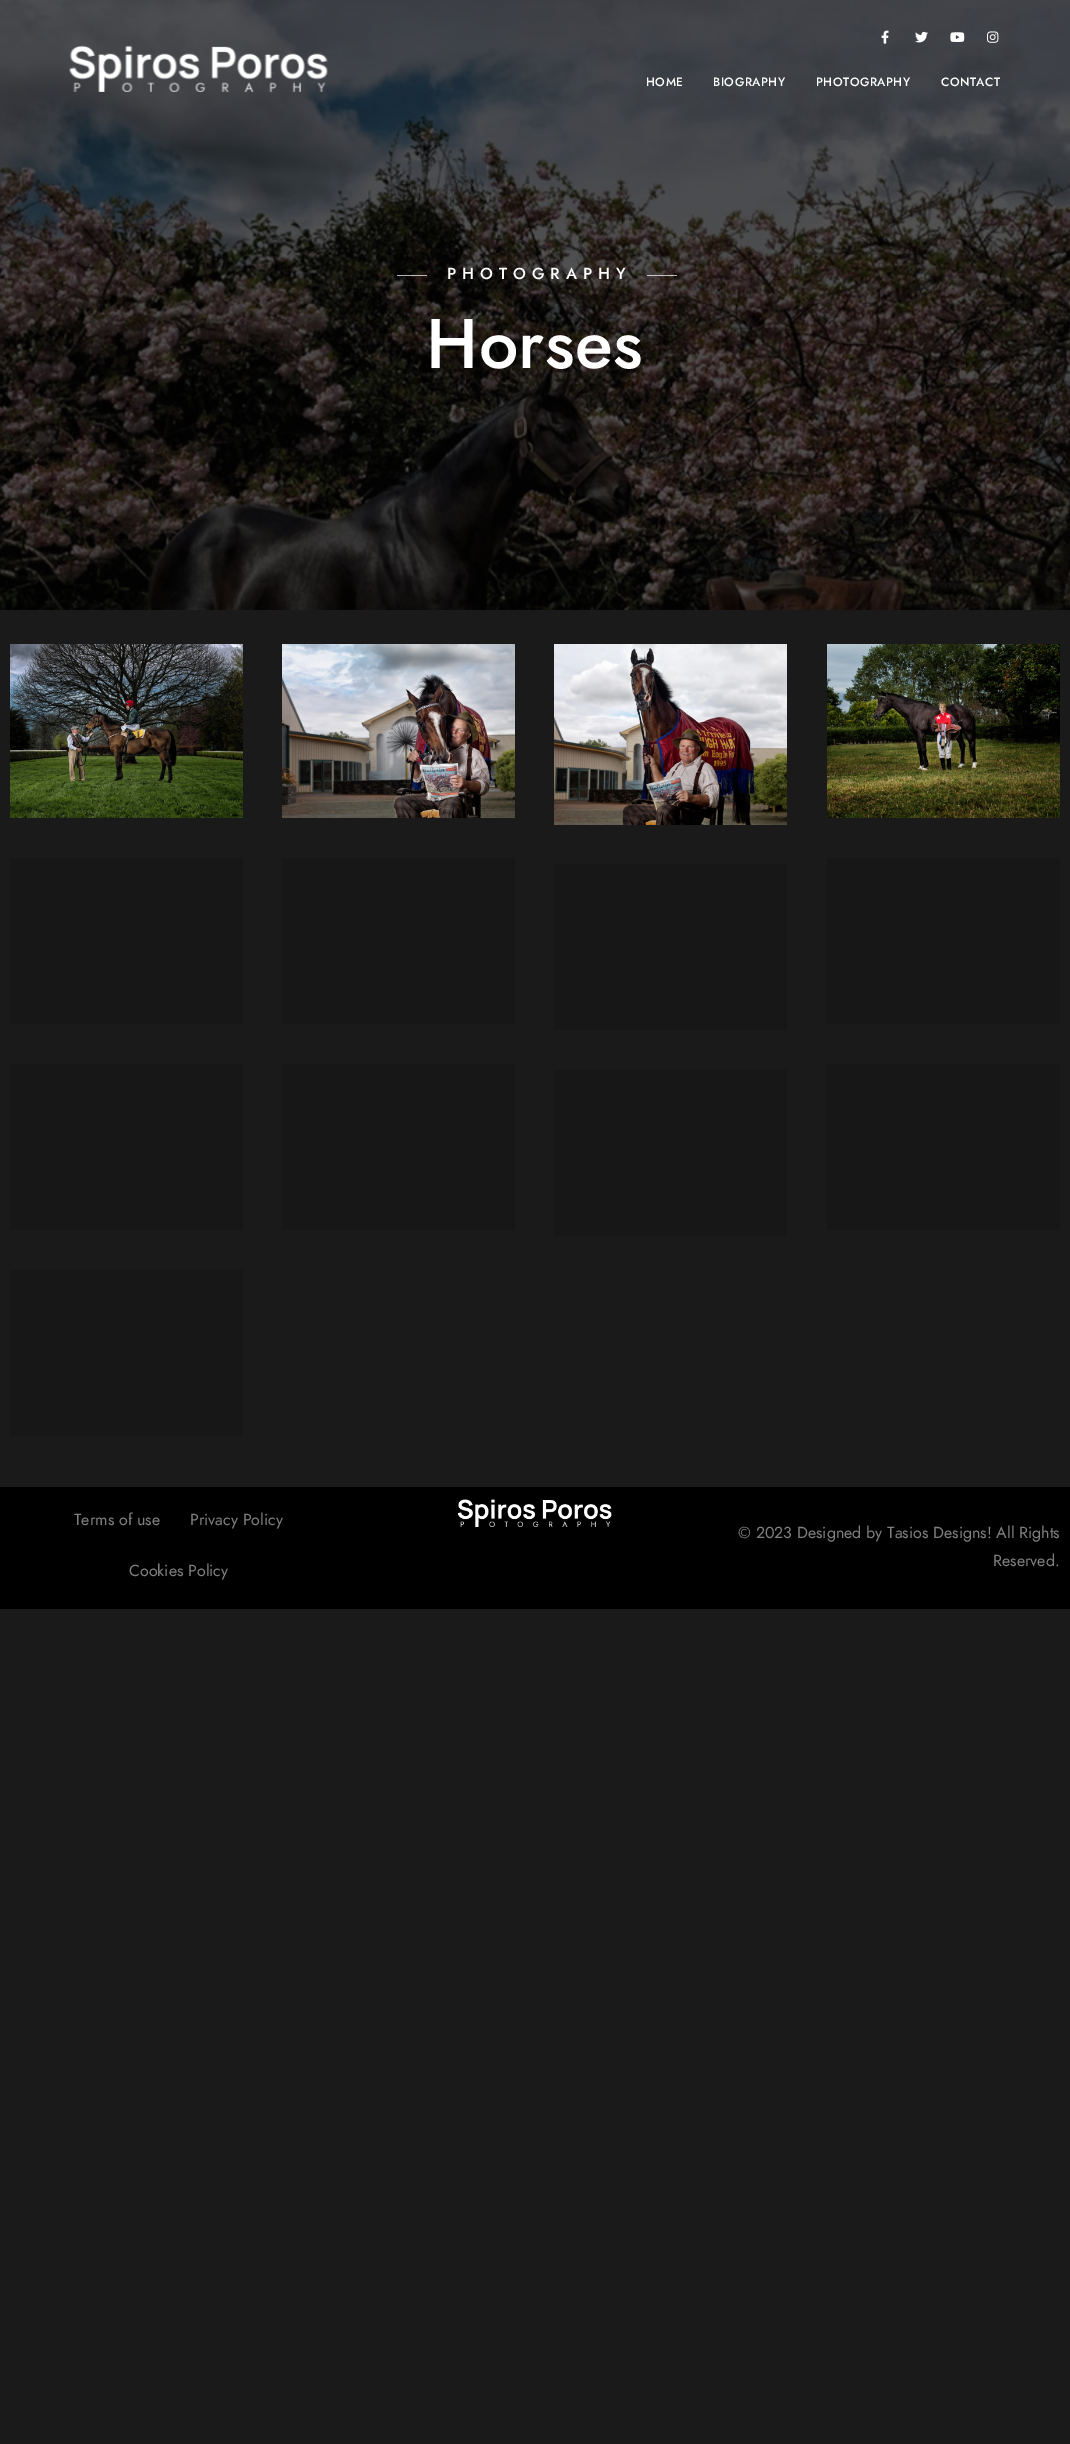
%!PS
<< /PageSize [1070 2444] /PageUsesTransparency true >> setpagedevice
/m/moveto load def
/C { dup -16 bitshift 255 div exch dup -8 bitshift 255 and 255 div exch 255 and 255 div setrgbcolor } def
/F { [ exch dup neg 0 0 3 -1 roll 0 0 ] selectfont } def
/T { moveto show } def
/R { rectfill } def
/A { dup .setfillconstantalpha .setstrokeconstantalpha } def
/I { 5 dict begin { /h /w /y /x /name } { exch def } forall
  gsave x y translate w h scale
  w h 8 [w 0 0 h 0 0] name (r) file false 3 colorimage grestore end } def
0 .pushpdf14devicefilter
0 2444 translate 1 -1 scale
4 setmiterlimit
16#1A1A1A C
0 0 1070 2444 R
(6.rgb) 0 0 1070 610 I
(1.rgb) 881 30 8 14 I
(2.rgb) 915 31 13 12 I
(3.rgb) 950 32 15 10 I
(4.rgb) 987 31 12 12 I
(5.rgb) 69 45 259 47 I
/Jost-Medium 12 F
16#FFFFFF C
646 86 m .5 0 (HOME) ashow
713 86 m .5 0 (BIOGRAPHY) ashow
816 86 m .5 0 (PHOTOGRAPHY) ashow
941 86 m .5 0 (CONTACT) ashow
0.7 A
397 275 30 1 R
/Jost-Medium 16 F
1 A
447 279 m 6 0 (PHOTOGRAPHY) ashow
0.7 A
647 275 30 1 R
/Jost-Medium 70 F
1 A
426 368 m .5 0 (Horses) ashow
(7.rgb) 10 644 233 174 I
(8.rgb) 282 644 233 174 I
(9.rgb) 554 644 233 181 I
(10.rgb) 827 644 233 174 I
16#171717 C
10 858 233 166 R
282 858 233 166 R
554 864 233 166 R
827 858 233 166 R
10 1064 233 166 R
282 1064 233 166 R
554 1070 233 166 R
827 1064 233 166 R
10 1270 233 166 R
16#000000 C
0 1487 1070 122 R
/Jost-Regular 16 F
16#808080 C
(Terms of use) 74 1525 T
(Privacy Policy) 190 1525 T
(Cookies Policy) 129 1576 T
(11.rgb) 458 1499 154 28 I
(© 2023 Designed by Tasios Designs! All Rights) 738 1538 T
(Reserved.) 993 1566 T
.poppdf14devicefilter showpage
